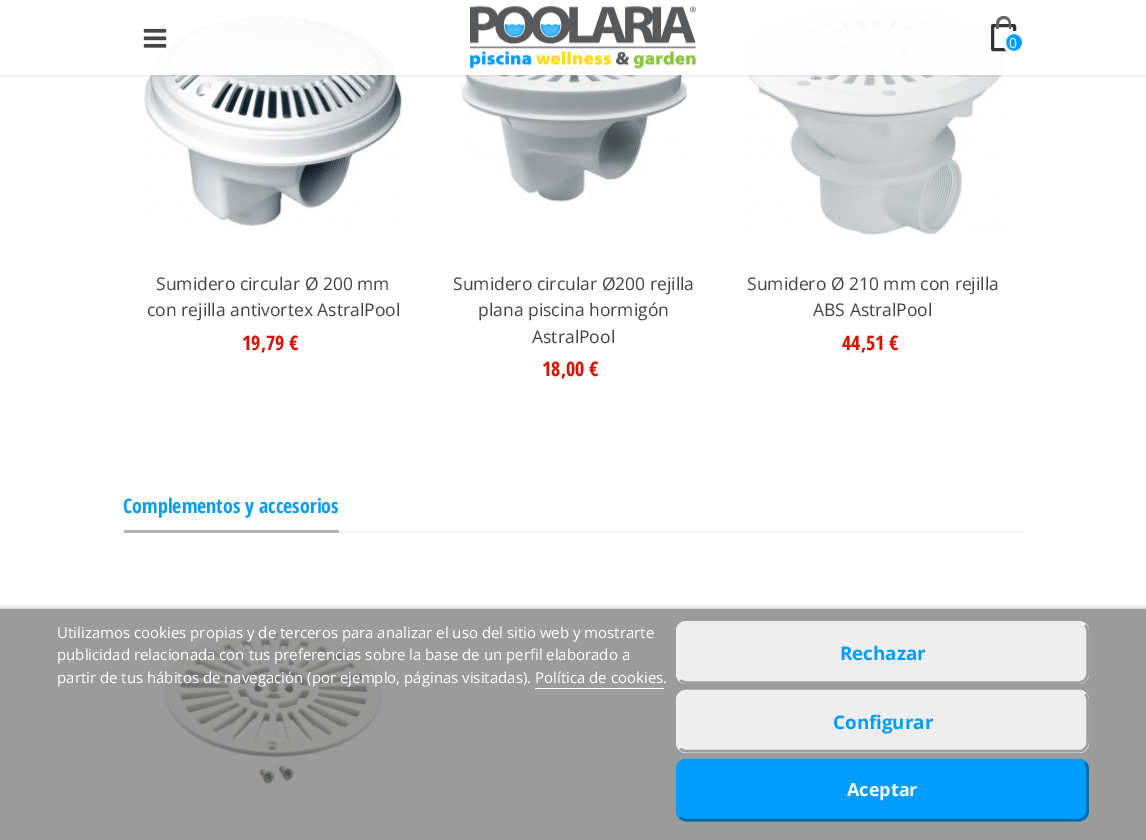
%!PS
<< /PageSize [1146 840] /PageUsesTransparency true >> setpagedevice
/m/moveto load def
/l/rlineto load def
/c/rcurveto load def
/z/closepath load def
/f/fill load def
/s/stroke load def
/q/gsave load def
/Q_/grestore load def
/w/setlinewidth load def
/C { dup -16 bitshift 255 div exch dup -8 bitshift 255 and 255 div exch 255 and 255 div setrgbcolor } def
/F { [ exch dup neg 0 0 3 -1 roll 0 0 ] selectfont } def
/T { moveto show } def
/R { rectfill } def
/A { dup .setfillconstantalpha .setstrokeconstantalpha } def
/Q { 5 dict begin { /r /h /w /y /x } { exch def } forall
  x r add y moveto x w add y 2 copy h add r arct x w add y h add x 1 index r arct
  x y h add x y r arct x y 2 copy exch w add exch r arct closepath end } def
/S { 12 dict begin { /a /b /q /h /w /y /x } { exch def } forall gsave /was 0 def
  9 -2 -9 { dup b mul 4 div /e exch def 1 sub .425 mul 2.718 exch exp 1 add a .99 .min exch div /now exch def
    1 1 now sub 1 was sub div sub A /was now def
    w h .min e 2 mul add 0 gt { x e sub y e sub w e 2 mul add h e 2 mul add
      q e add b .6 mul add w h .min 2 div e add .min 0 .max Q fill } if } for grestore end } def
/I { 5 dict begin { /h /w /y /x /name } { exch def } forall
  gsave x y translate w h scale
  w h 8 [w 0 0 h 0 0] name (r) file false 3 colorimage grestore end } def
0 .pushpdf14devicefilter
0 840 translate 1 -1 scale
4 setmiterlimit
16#FFFFFF C
0 0 1146 840 R
16#9B9B9B C
0 609 1146 231 R
(3.rgb) 144 14 259 213 I
(4.rgb) 461 46 227 156 I
(5.rgb) 742 5 264 230 I
q
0 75 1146 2 rectclip
16#000000 C
0 0 1146 75 0 2.5 .1 S
Q_
0.95 A
16#FFFFFF C
144 5 862 70 R
1 A
(1.rgb) 143 28 24 20 I
(2.rgb) 470 6 226 63 I
16#333333 C
3 w
992.5 25.5 22 24 1 Q s
16#666666 C
1004 16 m 4 0 7 3.5 7 8 c 0 5 l -15 0 l 0 -5 l 0 -4.5 3.5 -8 8 -8 c z 1004 19 m 5.5 0 5 6 5 10 c -10 0 l 0 -4 -1 -10 5 -10 c z eofill
16#009DFF C
1004.5 32.5 19 20 9.5 Q q f Q_
16#FFFFFF C
s
/OpenSans-Regular 14 F
(0) 1009 48 T
/OpenSans-Regular 17.5 F
16#444444 C
(Sumidero circular Ø 200 mm) 156 290 T
(con rejilla antivortex AstralPool) 147 316 T
/OpenSansCondensed-Bold 20 F
16#DA0F00 C
(19,79 €) 242 350 T
/OpenSans-Regular 17.5 F
16#444444 C
(Sumidero circular Ø200 rejilla) 453 290 T
(plana piscina hormigón) 478 316 T
(AstralPool) 532 343 T
/OpenSansCondensed-Bold 20 F
16#DA0F00 C
(18,00 €) 542 376 T
/OpenSans-Regular 17.5 F
16#444444 C
(Sumidero Ø 210 mm con rejilla) 747 290 T
(ABS AstralPool) 813 316 T
/OpenSansCondensed-Bold 20 F
16#DA0F00 C
(44,51 €) 842 350 T
16#F4F5F6 C
339 530 685 3 R
16#B2B2B2 C
124 530 215 3 R
16#009DFF C
(Complementos y accesorios) 123 513 T
(6.rgb) 164 630 221 157 I
q
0 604 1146 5 rectclip
16#707070 C
0 610 1146 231 0 3 1 S
Q_
/OpenSans-Regular 15 F
16#FFFFFF C
(Utilizamos cookies propias y de terceros para analizar el uso del sitio web y mostrarte) 57 638 T
(publicidad relacionada con tus preferencias sobre la base de un perfil elaborado a) 57 660 T
(partir de tus hábitos de navegación \(por ejemplo, páginas visitadas\). Política de cookies.) 57 683 T
535 688 129 1 R
16#EEEEEE C
676 621 413 63 10 Q f
16#9F9F9F C
2.5 w
1085 625 m 1.5 1.5 2.5 4 2.5 6 c 0 43 l 0 2 -1 4.5 -2.5 6 c -1.5 1.5 -4 2.5 -6 2.5 c -393 0 l -2 0 -4.5 -1 -6 -2.5 c s
16#EEEEEE C
680 680 m -1.5 -1.5 -2.5 -4 -2.5 -6 c 0 -43 l 0 -2 1 -4.5 2.5 -6 c 1.5 -1.5 4 -2.5 6 -2.5 c 393 0 l 2 0 4.5 1 6 2.5 c s
/OpenSans-Bold 18.75 F
16#009DFF C
(Rechazar) 840 660 T
16#EEEEEE C
676 690 413 63 10 Q f
16#9F9F9F C
1085 694 m 1.5 1.5 2.5 3.5 2.5 6 c 0 42.5 l 0 2.5 -1 4.5 -2.5 6 c -1.5 2 -4 2.5 -6 2.5 c -393 0 l -2 0 -4.5 -.5 -6 -2.5 c s
16#EEEEEE C
680 748.5 m -1.5 -1.5 -2.5 -3.5 -2.5 -6 c 0 -42.5 l 0 -2.5 1 -4.5 2.5 -6 c 1.5 -2 4 -3 6 -3 c 393 0 l 2 0 4.5 1 6 3 c s
16#009DFF C
(Configurar) 833 729 T
676 759 413 62 10 Q f
16#0069AA C
1085 762.5 m 1.5 1.5 2.5 4 2.5 6.5 c 0 42 l 0 2.5 -1 5 -2.5 6.5 c -1.5 1.5 -4 2.5 -6 2.5 c -393 0 l -2 0 -4.5 -1 -6 -2.5 c s
16#009DFF C
680 817.5 m -1.5 -1.5 -2.5 -4 -2.5 -6.5 c 0 -42 l 0 -2.5 1 -5 2.5 -6.5 c 1.5 -1.5 4 -2.5 6 -2.5 c 393 0 l 2 0 4.5 1 6 2.5 c s
/OpenSans-Bold 18 F
16#FFFFFF C
(Aceptar) 847 796 T
.poppdf14devicefilter showpage
